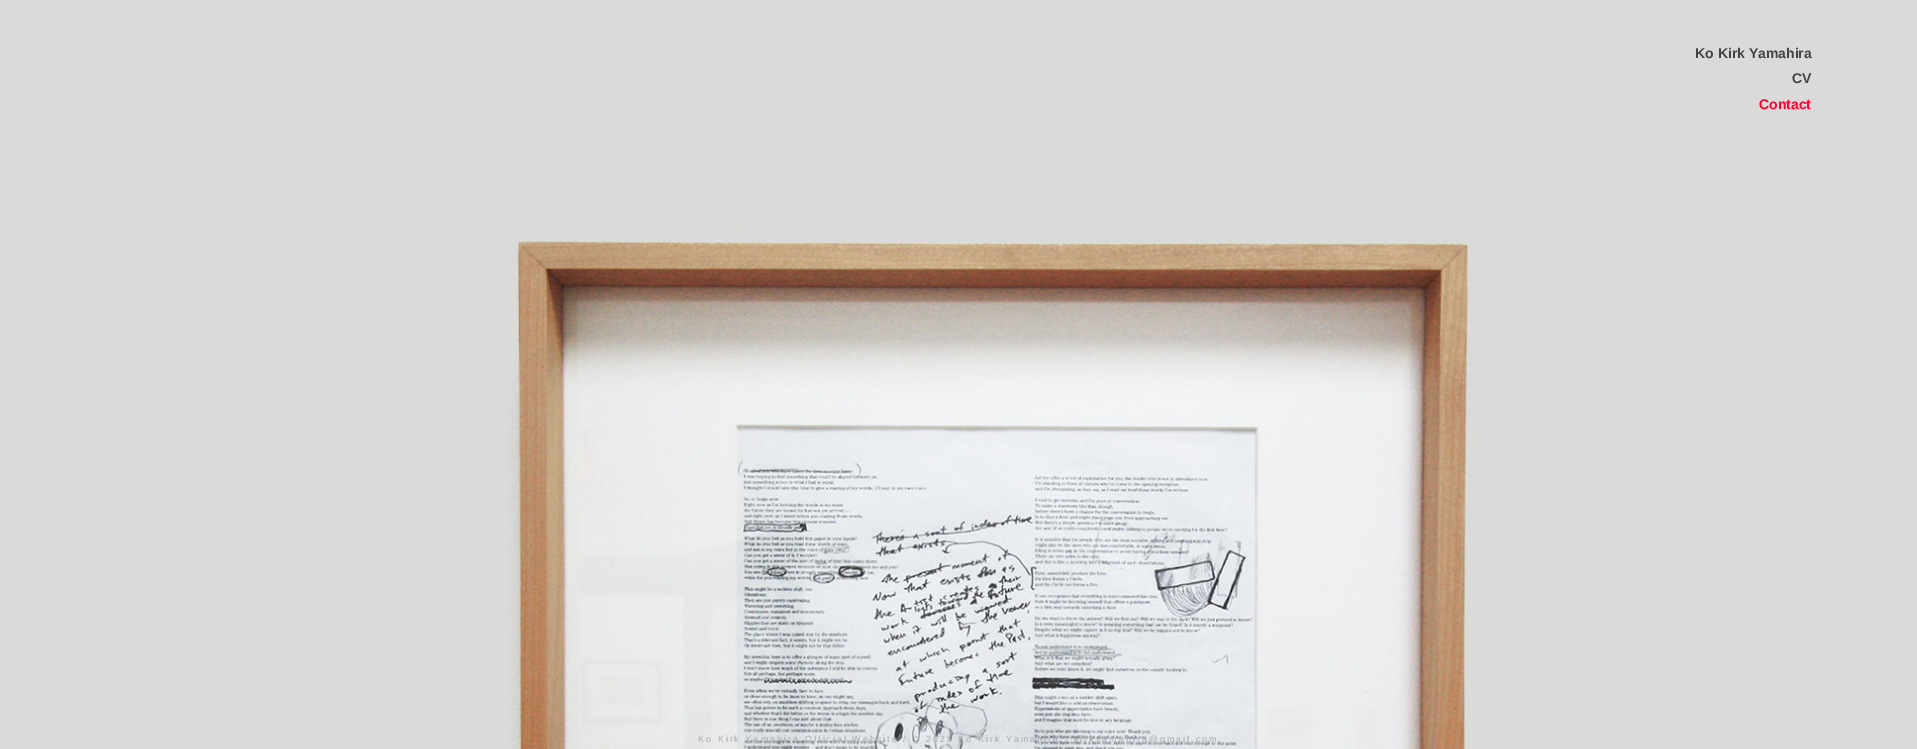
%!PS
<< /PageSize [1917 749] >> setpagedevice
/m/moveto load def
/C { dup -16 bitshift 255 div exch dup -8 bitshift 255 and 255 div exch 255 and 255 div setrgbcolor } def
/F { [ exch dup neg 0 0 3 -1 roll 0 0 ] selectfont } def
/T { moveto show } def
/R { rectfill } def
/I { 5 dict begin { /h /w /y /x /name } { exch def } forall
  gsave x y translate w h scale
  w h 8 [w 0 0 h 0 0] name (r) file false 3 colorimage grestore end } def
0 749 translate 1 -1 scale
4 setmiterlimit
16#FFFFFF C
0 0 1917 749 R
(1.rgb) 0 0 1917 749 I
/LiberationSans-Bold 14 F
16#444444 C
(Ko Kirk Yamahira) 1695 58 T
(CV) 1792 83 T
16#FF0033 C
(Contact) 1759 109 T
/LiberationSans-Regular 9 F
16#AAAAAA C
698 742 m 2 0 (Ko Kirk Yamahira Official Website / © 2025 Ko Kirk Yamahira / kirkyamahira@gmail.com) ashow
showpage
